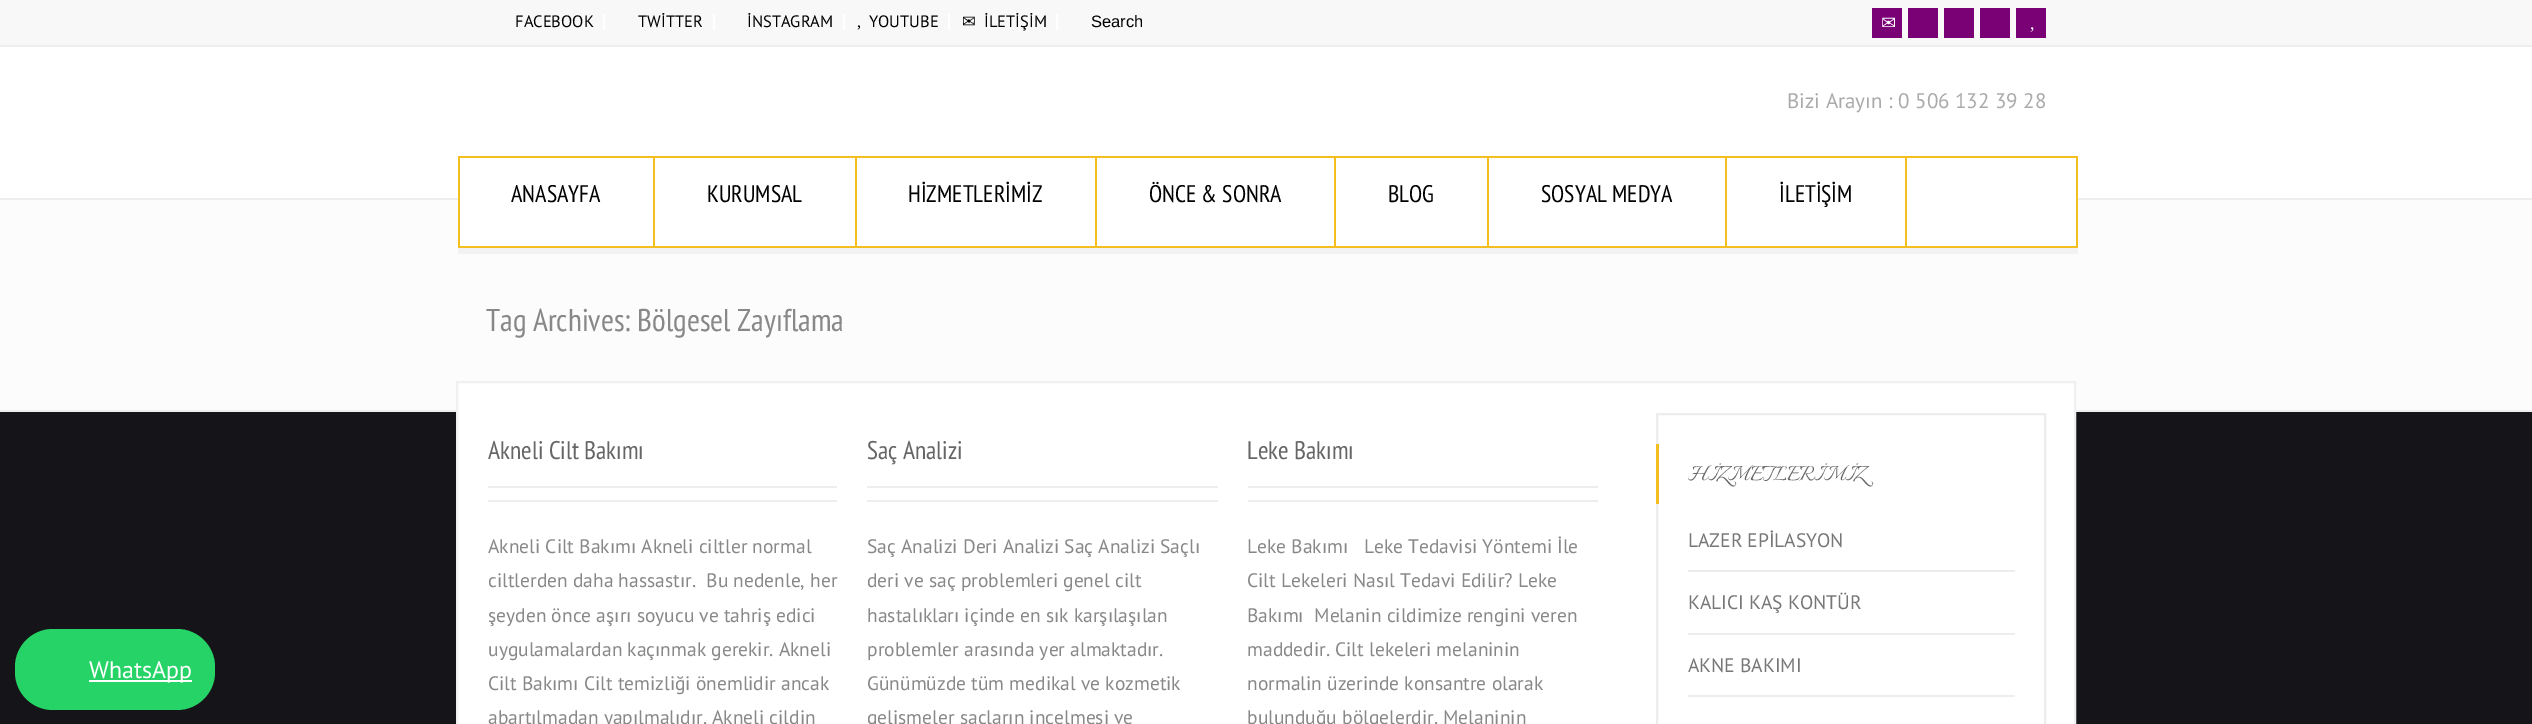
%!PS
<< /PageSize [2532 724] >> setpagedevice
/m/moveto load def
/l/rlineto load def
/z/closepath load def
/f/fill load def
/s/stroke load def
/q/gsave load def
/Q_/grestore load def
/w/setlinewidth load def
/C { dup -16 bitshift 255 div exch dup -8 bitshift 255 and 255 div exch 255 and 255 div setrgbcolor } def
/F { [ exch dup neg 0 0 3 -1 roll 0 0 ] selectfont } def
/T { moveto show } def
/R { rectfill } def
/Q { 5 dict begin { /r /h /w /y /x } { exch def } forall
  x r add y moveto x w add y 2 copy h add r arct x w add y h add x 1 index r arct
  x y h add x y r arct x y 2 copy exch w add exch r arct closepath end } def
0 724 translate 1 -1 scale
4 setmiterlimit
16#FFFFFF C
0 0 2532 724 R
16#151418 C
0 412 2532 312 R
16#25D366 C
15 629 200 81 38 Q f
16#FFFFFF C
89 680 103 2 R
/PTSans-Regular 24 F
(WhatsApp) 89 678 T
16#F8F8F8 C
0 0 2532 45 R
16#EEEEEE C
0 45 2532 2 R
16#FFFFFF C
603 14 2 16 R
/PTSans-Regular 16.5 F
16#000000 C
(FACEBOOK) 515 27 T
16#FFFFFF C
713 14 2 16 R
16#000000 C
(TWİTTER) 638 27 T
16#FFFFFF C
843 14 2 16 R
16#000000 C
(İNSTAGRAM) 747 27 T
16#FFFFFF C
948 14 2 16 R
/LiberationSerif-Regular 16.5 F
16#000000 C
(,) 857 27 T
/PTSans-Regular 16.5 F
(YOUTUBE) 869 27 T
16#FFFFFF C
1056 14 2 16 R
/DejaVuSans-Regular 16.5 F
16#000000 C
(✉) 962 27 T
/PTSans-Regular 16.5 F
(İLETİŞİM) 984 27 T
/LiberationSans-Regular 16.5 F
(Search) 1091 27 T
16#7A0075 C
1872 8 30 30 R
/DejaVuSans-Regular 18 F
16#FFFFFF C
(✉) 1881 29 T
16#7A0075 C
1908 8 30 30 R
1944 8 30 30 R
1980 8 30 30 R
2016 8 30 30 R
/LiberationSerif-Regular 18 F
16#FFFFFF C
(,) 2030 29 T
/PTSans-Regular 21 F
16#AAAAAA C
(Bizi Arayın : 0 506 132 39 28) 1787 108 T
16#FCFCFC C
0 200 2532 210 R
16#F2F2F2 C
458 248 m 0 6 l 1620 0 l 0 -92 l 0 86 l z f
16#EEEEEE C
0 198 2532 2 R
16#FFFFFF C
460 198 1616 48 R
16#F4BF1E C
458 156 1620 2 R
2076 156 2 92 R
458 246 1620 2 R
653 158 2 88 R
458 158 2 88 R
/PTSansNarrow-Regular 24 F
16#000000 C
(ANASAYFA) 511 202 T
16#F4BF1E C
855 158 2 88 R
16#000000 C
(KURUMSAL) 707 202 T
16#F4BF1E C
1095 158 2 88 R
16#000000 C
(HİZMETLERİMİZ) 908 202 T
16#F4BF1E C
1334 158 2 88 R
16#000000 C
(ÖNCE & SONRA) 1149 202 T
16#F4BF1E C
1487 158 2 88 R
16#000000 C
(BLOG) 1388 202 T
16#F4BF1E C
1725 158 2 88 R
16#000000 C
(SOSYAL MEDYA) 1541 202 T
16#F4BF1E C
1905 158 2 88 R
16#000000 C
(İLETİŞİM) 1779 202 T
16#EEEEEE C
0 410 2532 2 R
/PTSansNarrow-Regular 31.5 F
16#888888 C
(Tag Archives: Bölgesel Zayıflama) 486 331 T
16#FFFFFF C
457 382 m 1618 0 l 0 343 l -1618 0 l z q f Q_
16#F0F0F0 C
2 w
s
16#EEEEEE C
488 500 349 2 R
/PTSansNarrow-Regular 25.5 F
16#666666 C
(Akneli Cilt Bakımı) 488 459 T
16#EEEEEE C
488 486 349 2 R
/PTSans-Regular 19.5 F
16#888888 C
(Akneli Cilt Bakımı Akneli ciltler normal) 488 553 T
(ciltlerden daha hassastır.  Bu nedenle, her) 488 587 T
(şeyden önce aşırı soyucu ve tahriş edici) 488 622 T
(uygulamalardan kaçınmak gerekir. Akneli) 488 656 T
(Cilt Bakımı Cilt temizliği önemlidir ancak) 488 690 T
(abartılmadan yapılmalıdır. Akneli cildin) 488 724 T
16#EEEEEE C
867 500 351 2 R
/PTSansNarrow-Regular 25.5 F
16#666666 C
(Saç Analizi) 867 459 T
16#EEEEEE C
867 486 351 2 R
/PTSans-Regular 19.5 F
16#888888 C
(Saç Analizi Deri Analizi Saç Analizi Saçlı) 867 553 T
(deri ve saç problemleri genel cilt) 867 587 T
(hastalıkları içinde en sık karşılaşılan) 867 622 T
(problemler arasında yer almaktadır.) 867 656 T
(Günümüzde tüm medikal ve kozmetik) 867 690 T
(gelişmeler saçların incelmesi ve) 867 724 T
16#EEEEEE C
1248 500 350 2 R
/PTSansNarrow-Regular 25.5 F
16#666666 C
(Leke Bakımı) 1247 459 T
16#EEEEEE C
1248 486 350 2 R
/PTSans-Regular 19.5 F
16#888888 C
(Leke Bakımı   Leke Tedavisi Yöntemi İle) 1247 553 T
(Cilt Lekeleri Nasıl Tedavi Edilir? Leke) 1247 587 T
(Bakımı  Melanin cildimize rengini veren) 1247 622 T
(maddedir. Cilt lekeleri melaninin) 1247 656 T
(normalin üzerinde konsantre olarak) 1247 690 T
(bulunduğu bölgelerdir. Melaninin) 1247 724 T
16#EDEDED C
1657 414 388 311 rectstroke
16#F4BF1E C
1656 444 3 60 R
/Italianno-Regular 25.5 F
16#666666 C
(HİZMETLERİMİZ) 1688 480 T
16#EDEDED C
1688 570 327 2 R
/PTSans-Regular 19.5 F
16#777777 C
(LAZER EPİLASYON) 1688 547 T
16#EDEDED C
1688 633 327 2 R
16#777777 C
(KALICI KAŞ KONTÜR) 1688 609 T
16#EDEDED C
1688 695 327 2 R
16#777777 C
(AKNE BAKIMI) 1688 672 T
showpage
